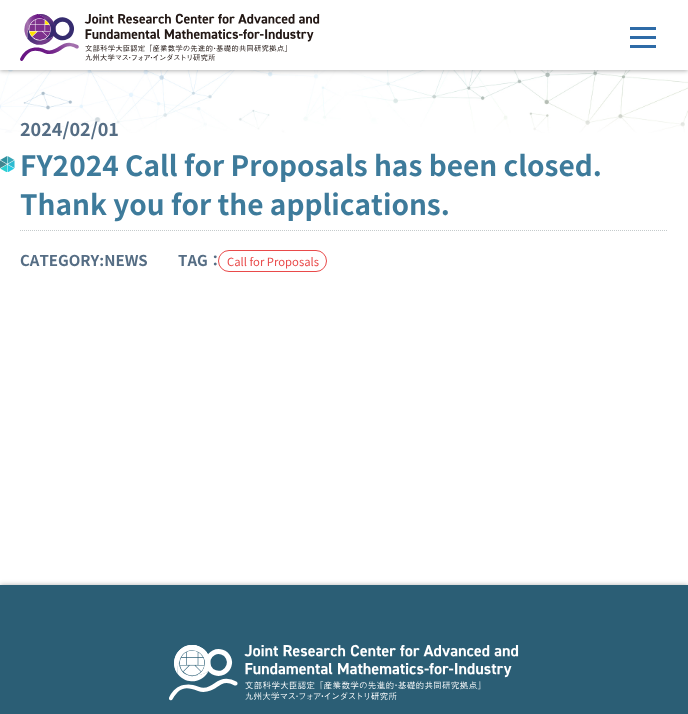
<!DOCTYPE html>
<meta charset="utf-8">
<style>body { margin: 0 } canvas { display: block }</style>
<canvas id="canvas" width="688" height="714"></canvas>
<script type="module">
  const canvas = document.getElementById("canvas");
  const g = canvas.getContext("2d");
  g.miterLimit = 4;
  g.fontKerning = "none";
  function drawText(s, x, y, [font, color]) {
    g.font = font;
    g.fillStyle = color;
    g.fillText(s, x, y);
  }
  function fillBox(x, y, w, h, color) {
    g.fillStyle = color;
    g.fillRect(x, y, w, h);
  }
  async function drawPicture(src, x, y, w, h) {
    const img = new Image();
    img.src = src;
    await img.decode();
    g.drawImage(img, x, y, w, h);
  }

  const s1 = ["bold 18px Noto Sans JP", "#556D84"];
  const s2 = ["bold 28px Noto Sans JP", "#3E7B9B"];
  const s3 = ["bold 15px Noto Sans JP", "#556D84"];
  const s4 = ["11.25px Noto Sans JP", "#E94A4A"];

  fillBox(0, 0, 688, 714, "#FFFFFF");
  await drawPicture("pic2.png", 0, 70, 688, 63);
  g.fillStyle = "rgba(0, 0, 0, 0.3)";
  g.filter = "blur(2px)";
  g.beginPath();
  g.rect(0, 1, 688, 70);
  g.fill();
  g.filter = "none";
  fillBox(0, 0, 688, 70, "#FFFFFF");
  await drawPicture("pic1.png", 20, 13, 300, 48);
  fillBox(630, 27, 26, 3, "#2E6BA7");
  fillBox(630, 36, 26, 3, "#2E6BA7");
  fillBox(630, 45, 26, 3, "#2E6BA7");
  drawText("2024/02/01", 20, 136, s1);
  g.beginPath();
  g.moveTo(20, 230.5);
  g.lineTo(668, 230.5);
  g.strokeStyle = "#C5CBCC";
  g.setLineDash([1, 1]);
  g.stroke();
  await drawPicture("pic3.png", 0, 156, 15, 16);
  drawText("FY2024 Call for Proposals has been closed.", 20, 176, s2);
  drawText("Thank you for the applications.", 20, 215, s2);
  drawText("CATEGORY:NEWS", 20, 266, s3);
  drawText("TAG：", 178, 266, s3);
  g.beginPath();
  g.roundRect(218.5, 250.5, 108, 21, 10.5);
  g.strokeStyle = "#E94A4A";
  g.setLineDash([]);
  g.stroke();
  drawText("Call for Proposals", 227, 266, s4);
  g.fillStyle = "rgba(0, 0, 0, 0.3)";
  g.filter = "blur(2.5px)";
  g.beginPath();
  g.rect(0, 585, 688, 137);
  g.fill();
  g.filter = "none";
  fillBox(0, 585, 688, 129, "#2B5E75");
  await drawPicture("pic4.png", 169, 644, 350, 57);
</script>
